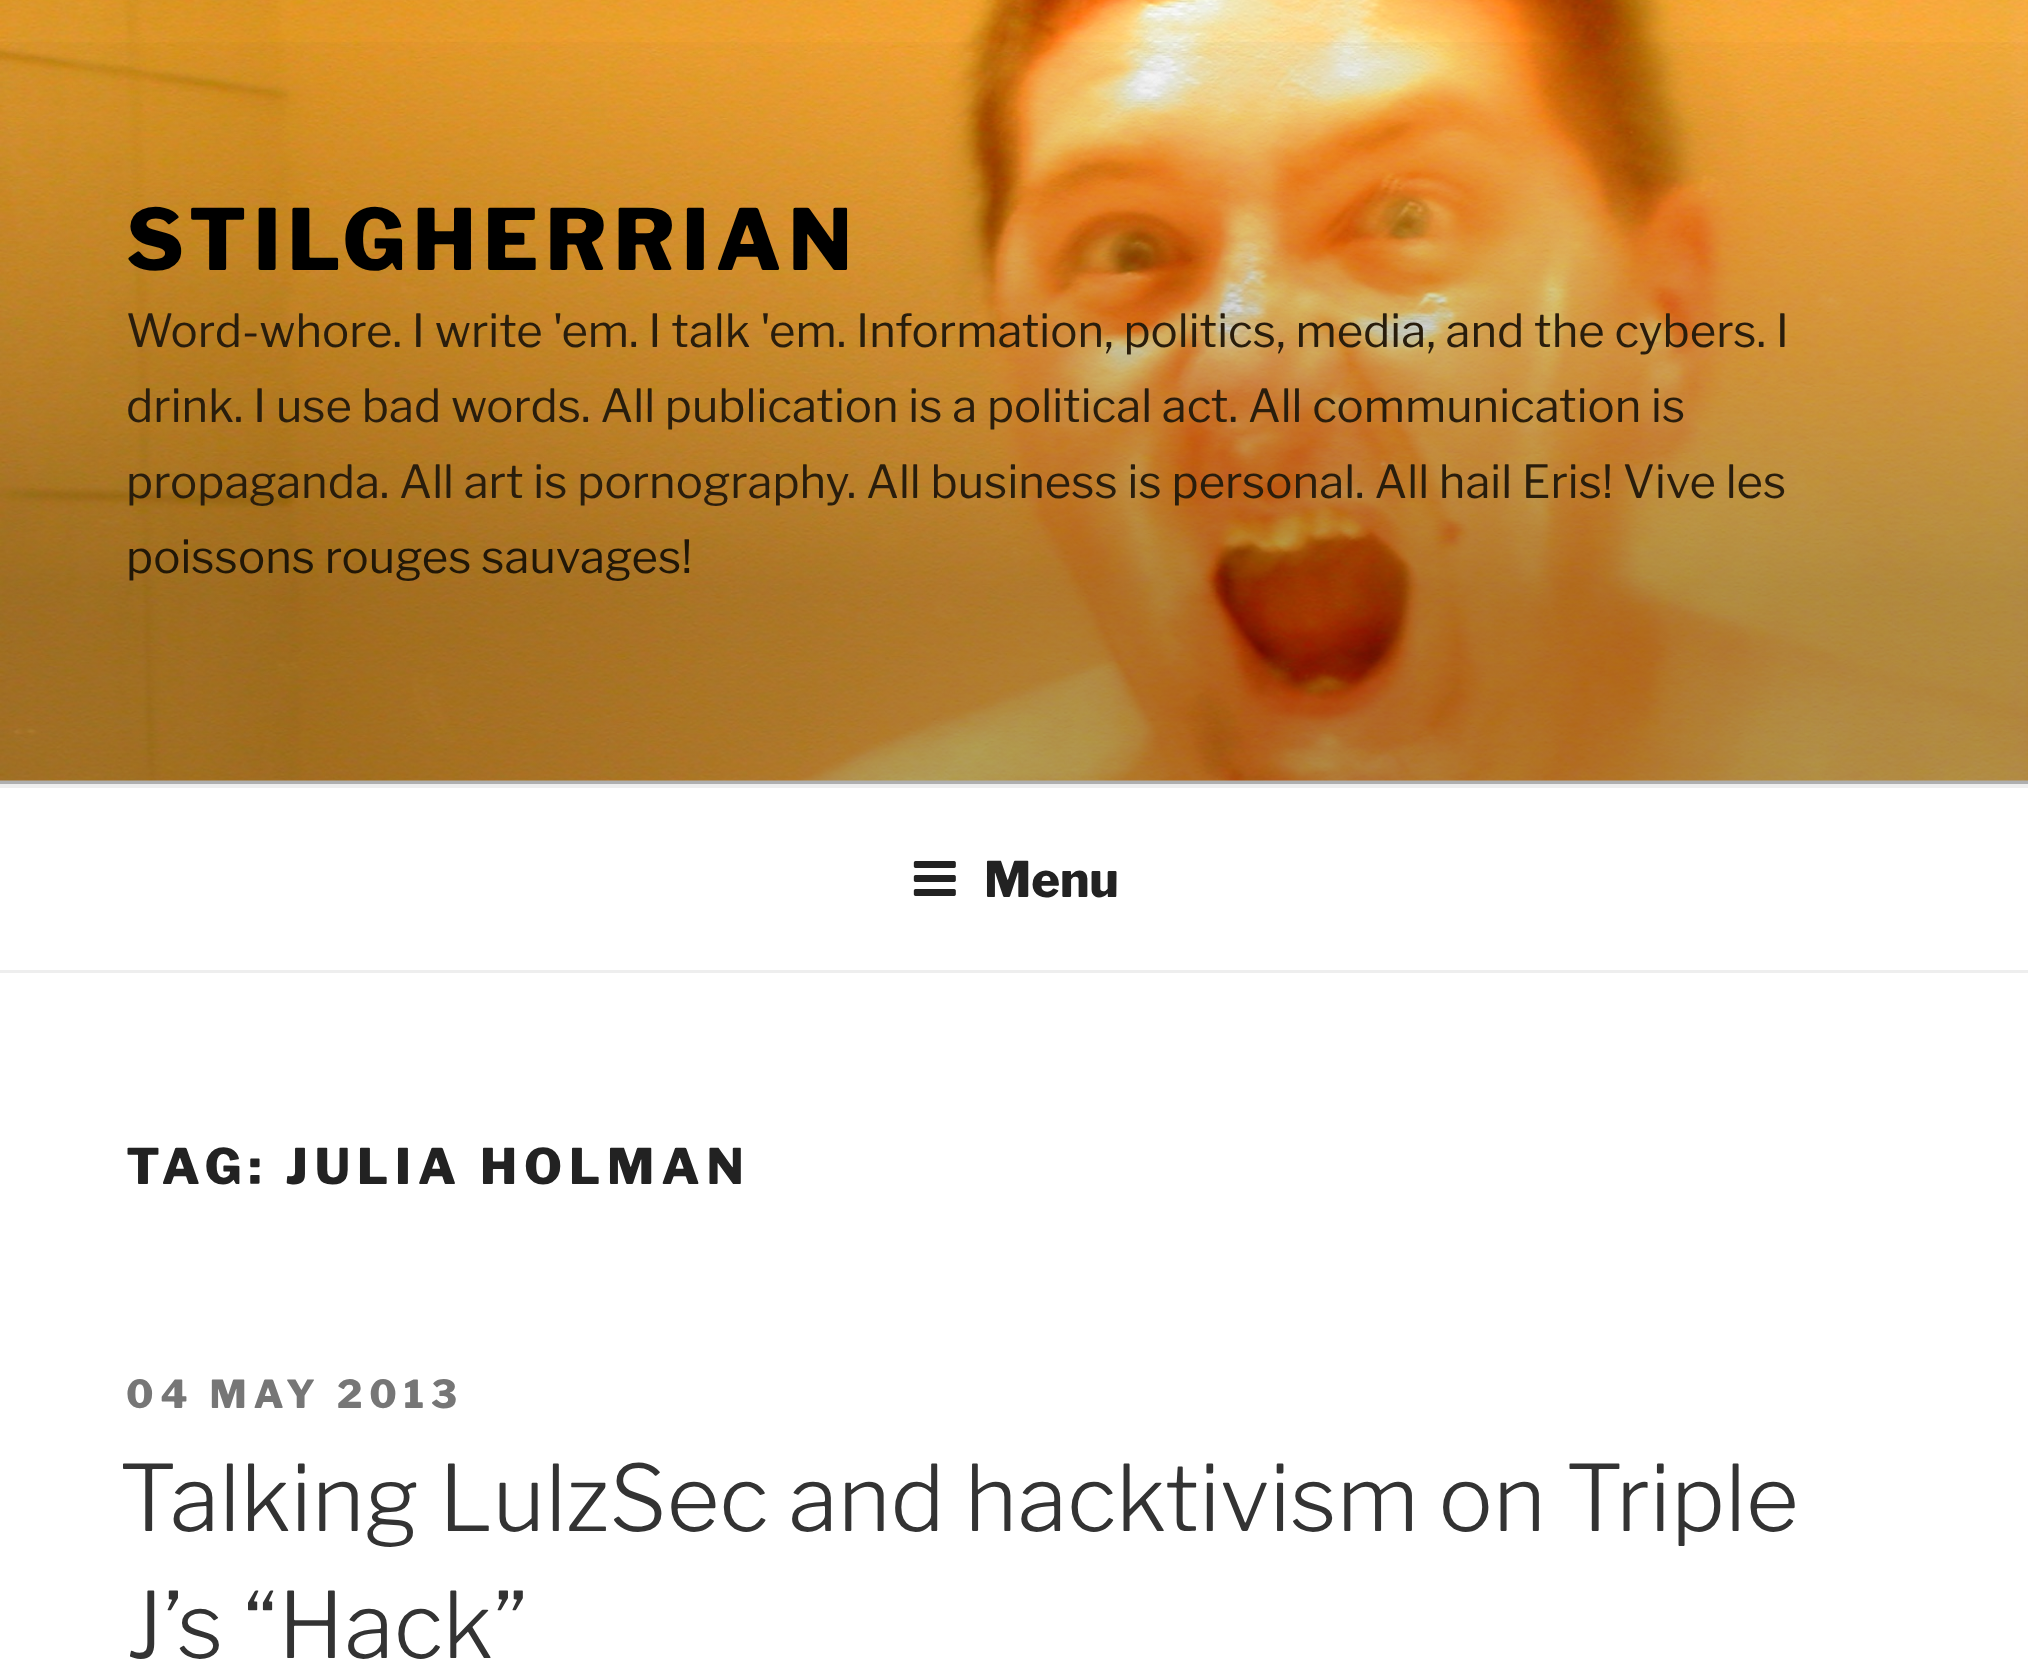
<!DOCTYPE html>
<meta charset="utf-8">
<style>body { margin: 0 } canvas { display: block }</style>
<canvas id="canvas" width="2028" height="1664"></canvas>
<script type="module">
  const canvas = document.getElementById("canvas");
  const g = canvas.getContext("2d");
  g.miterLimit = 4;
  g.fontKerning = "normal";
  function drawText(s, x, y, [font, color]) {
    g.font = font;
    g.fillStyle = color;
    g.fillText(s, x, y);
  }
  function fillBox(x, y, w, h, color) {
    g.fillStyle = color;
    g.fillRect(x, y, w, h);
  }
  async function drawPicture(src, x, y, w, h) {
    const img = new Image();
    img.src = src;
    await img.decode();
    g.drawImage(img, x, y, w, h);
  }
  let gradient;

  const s1 = ["100 84px Libre Franklin", "#000000"];
  const s2 = ["100 45.5px 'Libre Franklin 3'", "#291D0C"];
  const s3 = ["100 45.5px 'Libre Franklin 3'", "#211707"];
  const s4 = ["100 49px Libre Franklin", "#222222"];
  const s5 = ["100 38.5px Libre Franklin", "#767676"];
  const s6 = ["100 91px 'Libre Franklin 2'", "#333333"];

  fillBox(0, 0, 2028, 1664, "#FAFAFA");
  await drawPicture("pic1.png", 0, 0, 2028, 781);
  gradient = g.createLinearGradient(1015, 0, 1015, 784);
  gradient.addColorStop(0, "rgba(0, 0, 0, 0)");
  gradient.addColorStop(0.75, "rgba(0, 0, 0, 0.3)");
  gradient.addColorStop(1, "rgba(0, 0, 0, 0.3)");
  g.fillStyle = gradient;
  g.fillRect(0, 42, 2028, 742);
  g.letterSpacing = "6.75px";
  drawText("STILGHERRIAN", 126, 270, s1);
  g.letterSpacing = "0px";
  drawText("Word-whore. I write 'em. I talk 'em. Information, politics, media, and the cybers. I", 126, 347, s2);
  drawText("drink. I use bad words. All publication is a political act. All communication is", 126, 422, s2);
  drawText("propaganda. All art is pornography. All business is personal. All hail Eris! Vive les", 126, 498, s2);
  drawText("poissons rouges sauvages!", 126, 573, s3);
  fillBox(0, 788, 2028, 182, "#FFFFFF");
  fillBox(0, 784, 2028, 4, "#EEEEEE");
  fillBox(0, 970, 2028, 3, "#EEEEEE");
  await drawPicture("pic2.png", 913, 861, 43, 35);
  drawText("Menu", 984, 897, s4);
  fillBox(0, 973, 2028, 691, "#FFFFFF");
  g.letterSpacing = "6.9px";
  drawText("TAG: JULIA HOLMAN", 126, 1184, s4);
  g.letterSpacing = "7px";
  drawText("04 MAY 2013", 126, 1408, s5);
  g.letterSpacing = "0px";
  drawText("Talking LulzSec and hacktivism on Triple", 119, 1531, s6);
  drawText("J’s “Hack”", 126, 1658, s6);
</script>
